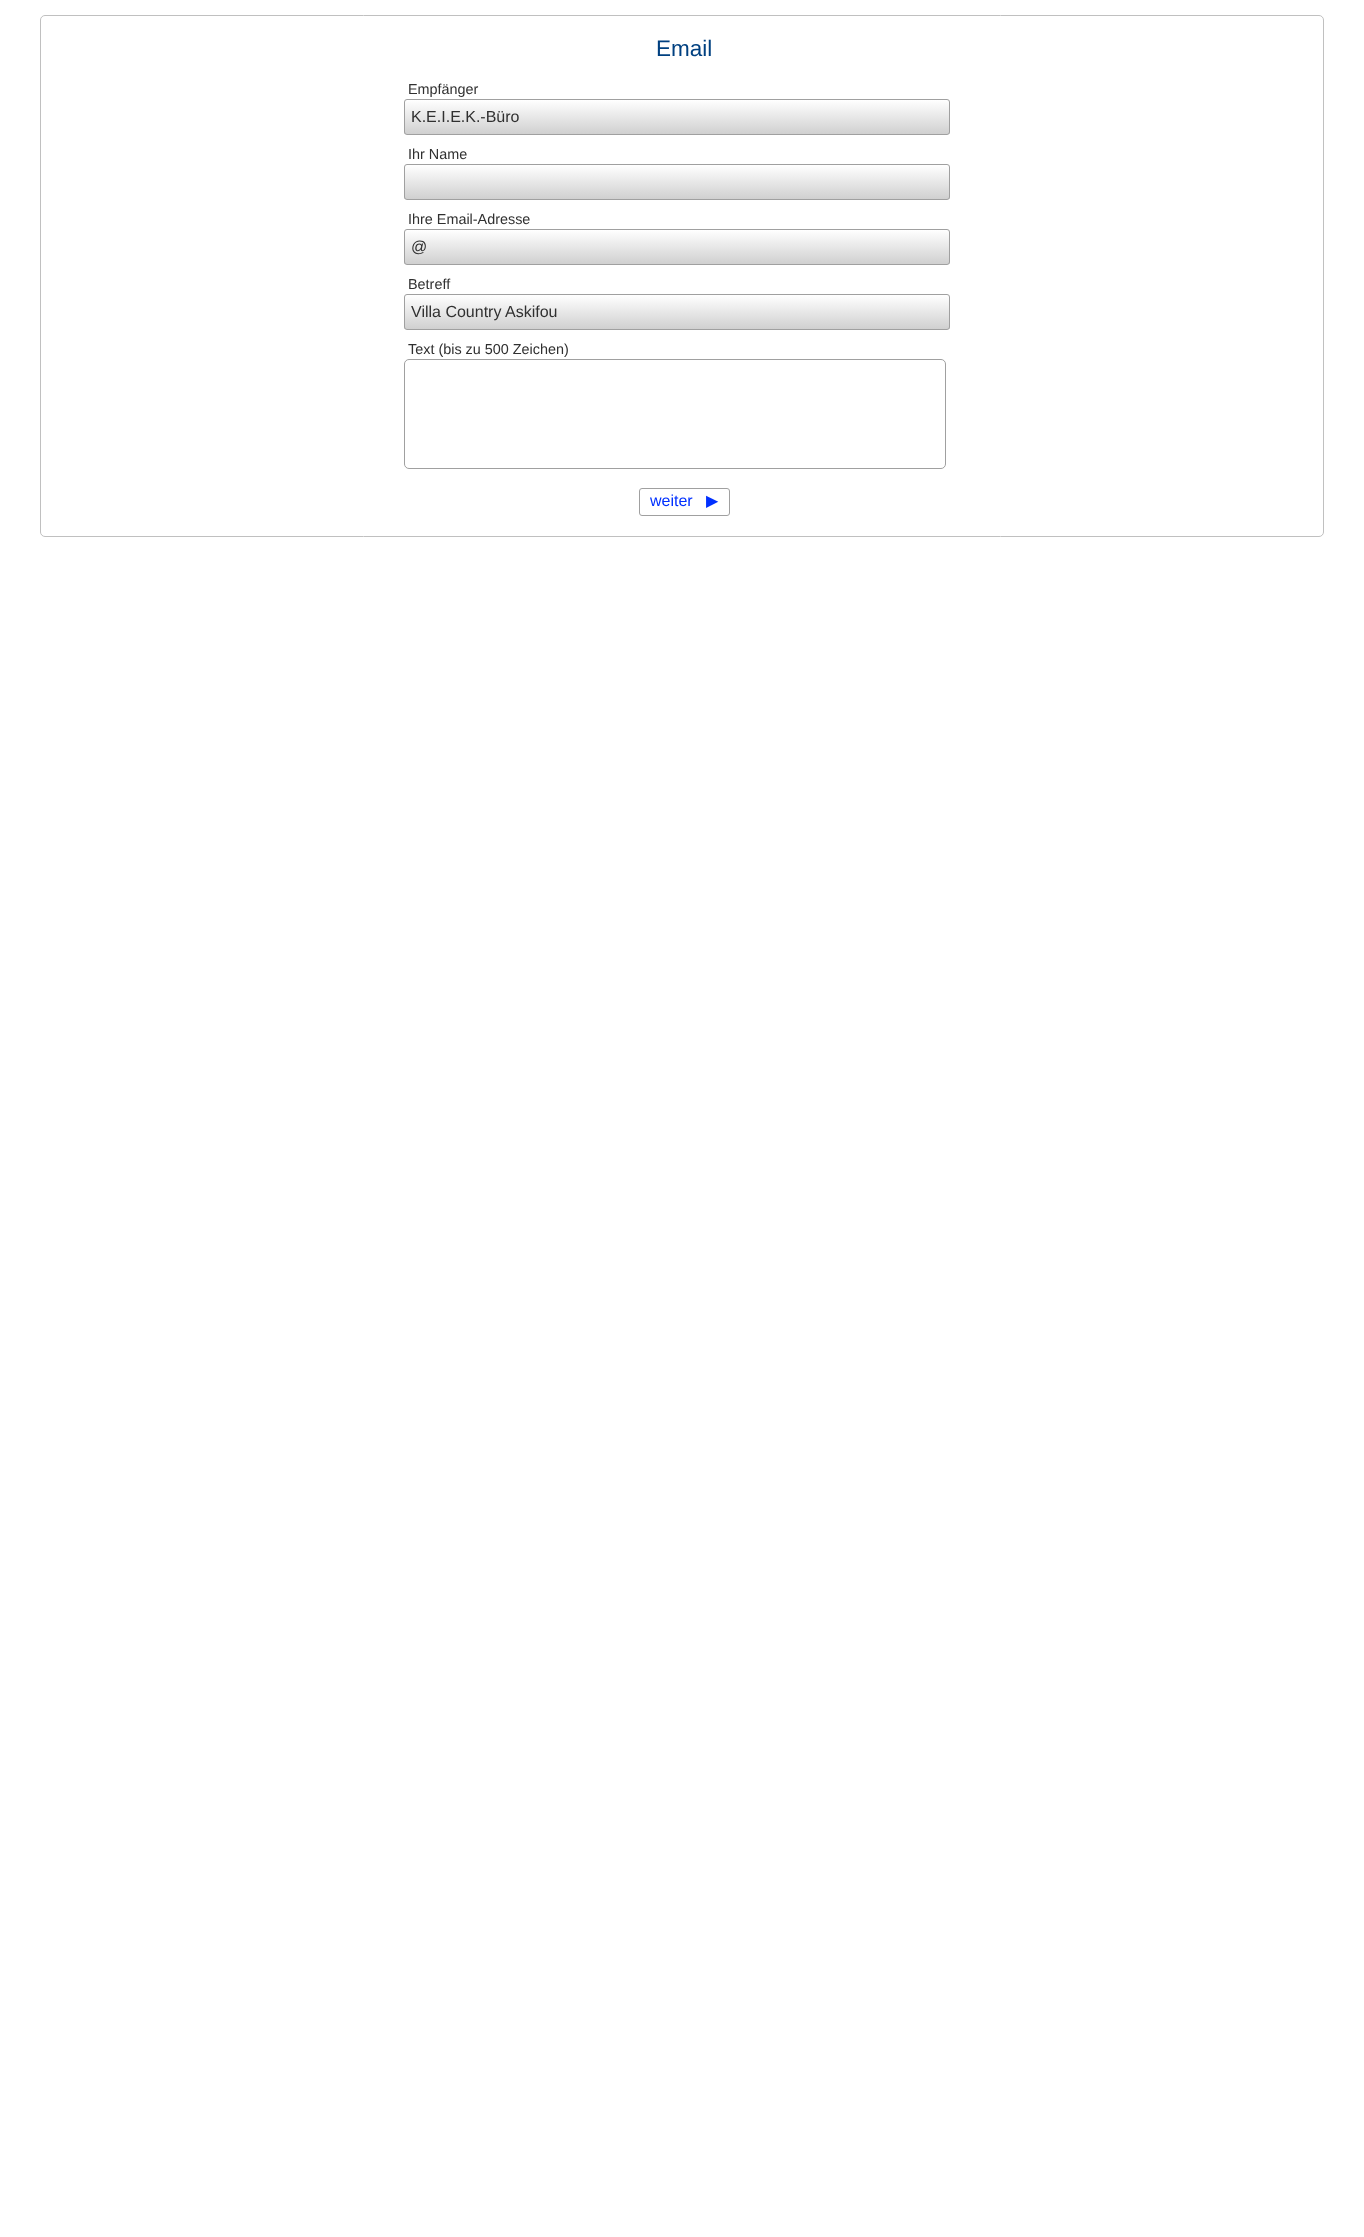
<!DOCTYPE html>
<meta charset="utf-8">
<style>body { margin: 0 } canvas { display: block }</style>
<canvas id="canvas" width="1364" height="2237"></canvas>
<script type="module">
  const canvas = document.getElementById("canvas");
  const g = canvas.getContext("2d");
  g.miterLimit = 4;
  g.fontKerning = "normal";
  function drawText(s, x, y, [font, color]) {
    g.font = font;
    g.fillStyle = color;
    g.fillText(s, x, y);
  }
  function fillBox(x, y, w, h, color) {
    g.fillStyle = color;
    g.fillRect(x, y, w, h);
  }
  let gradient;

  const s1 = ["22.5px Liberation Sans", "#004080"];
  const s2 = ["14.4px Liberation Sans", "#303030"];
  const s3 = ["16px Liberation Sans", "#303030"];
  const s4 = ["16px Liberation Sans", "#0030FF"];
  const s5 = ["16px DejaVu Sans", "#0030FF"];

  fillBox(0, 0, 1364, 2237, "#FFFFFF");
  g.beginPath();
  g.roundRect(40.5, 15.5, 1283, 521, 4.5);
  g.strokeStyle = "#C0C0C0";
  g.stroke();
  drawText("Email", 656, 56, s1);
  drawText("Empfänger", 408, 94, s2);
  g.save();
  g.beginPath();
  g.roundRect(404, 99, 546, 36, 3);
  g.clip();
  gradient = g.createLinearGradient(677, 100, 677, 134);
  gradient.addColorStop(0, "#FFFFFF");
  gradient.addColorStop(1, "#D0D0D0");
  g.fillStyle = gradient;
  g.fillRect(404, 100, 546, 34);
  g.restore();
  g.beginPath();
  g.roundRect(404.5, 99.5, 545, 35, 2.5);
  g.strokeStyle = "#A0A0A0";
  g.stroke();
  drawText("K.E.I.E.K.-Büro", 411, 122, s3);
  drawText("Ihr Name", 408, 159, s2);
  g.save();
  g.beginPath();
  g.roundRect(404, 164, 546, 36, 3);
  g.clip();
  gradient = g.createLinearGradient(677, 165, 677, 199);
  gradient.addColorStop(0, "#FFFFFF");
  gradient.addColorStop(1, "#D0D0D0");
  g.fillStyle = gradient;
  g.fillRect(404, 165, 546, 34);
  g.restore();
  g.beginPath();
  g.roundRect(404.5, 164.5, 545, 35, 2.5);
  g.stroke();
  drawText("Ihre Email-Adresse", 408, 224, s2);
  g.save();
  g.beginPath();
  g.roundRect(404, 229, 546, 36, 3);
  g.clip();
  gradient = g.createLinearGradient(677, 230, 677, 264);
  gradient.addColorStop(0, "#FFFFFF");
  gradient.addColorStop(1, "#D0D0D0");
  g.fillStyle = gradient;
  g.fillRect(404, 230, 546, 34);
  g.restore();
  g.beginPath();
  g.roundRect(404.5, 229.5, 545, 35, 2.5);
  g.stroke();
  drawText("@", 411, 252, s3);
  drawText("Betreff", 408, 289, s2);
  g.save();
  g.beginPath();
  g.roundRect(404, 294, 546, 36, 3);
  g.clip();
  gradient = g.createLinearGradient(677, 295, 677, 329);
  gradient.addColorStop(0, "#FFFFFF");
  gradient.addColorStop(1, "#D0D0D0");
  g.fillStyle = gradient;
  g.fillRect(404, 295, 546, 34);
  g.restore();
  g.beginPath();
  g.roundRect(404.5, 294.5, 545, 35, 2.5);
  g.stroke();
  drawText("Villa Country Askifou", 411, 317, s3);
  drawText("Text (bis zu 500 Zeichen)", 408, 354, s2);
  g.beginPath();
  g.roundRect(404.5, 359.5, 541, 109, 4.5);
  g.stroke();
  g.beginPath();
  g.roundRect(639.5, 488.5, 90, 27, 2.5);
  g.stroke();
  drawText("weiter", 650, 506, s4);
  drawText("▶", 706, 506, s5);
</script>
